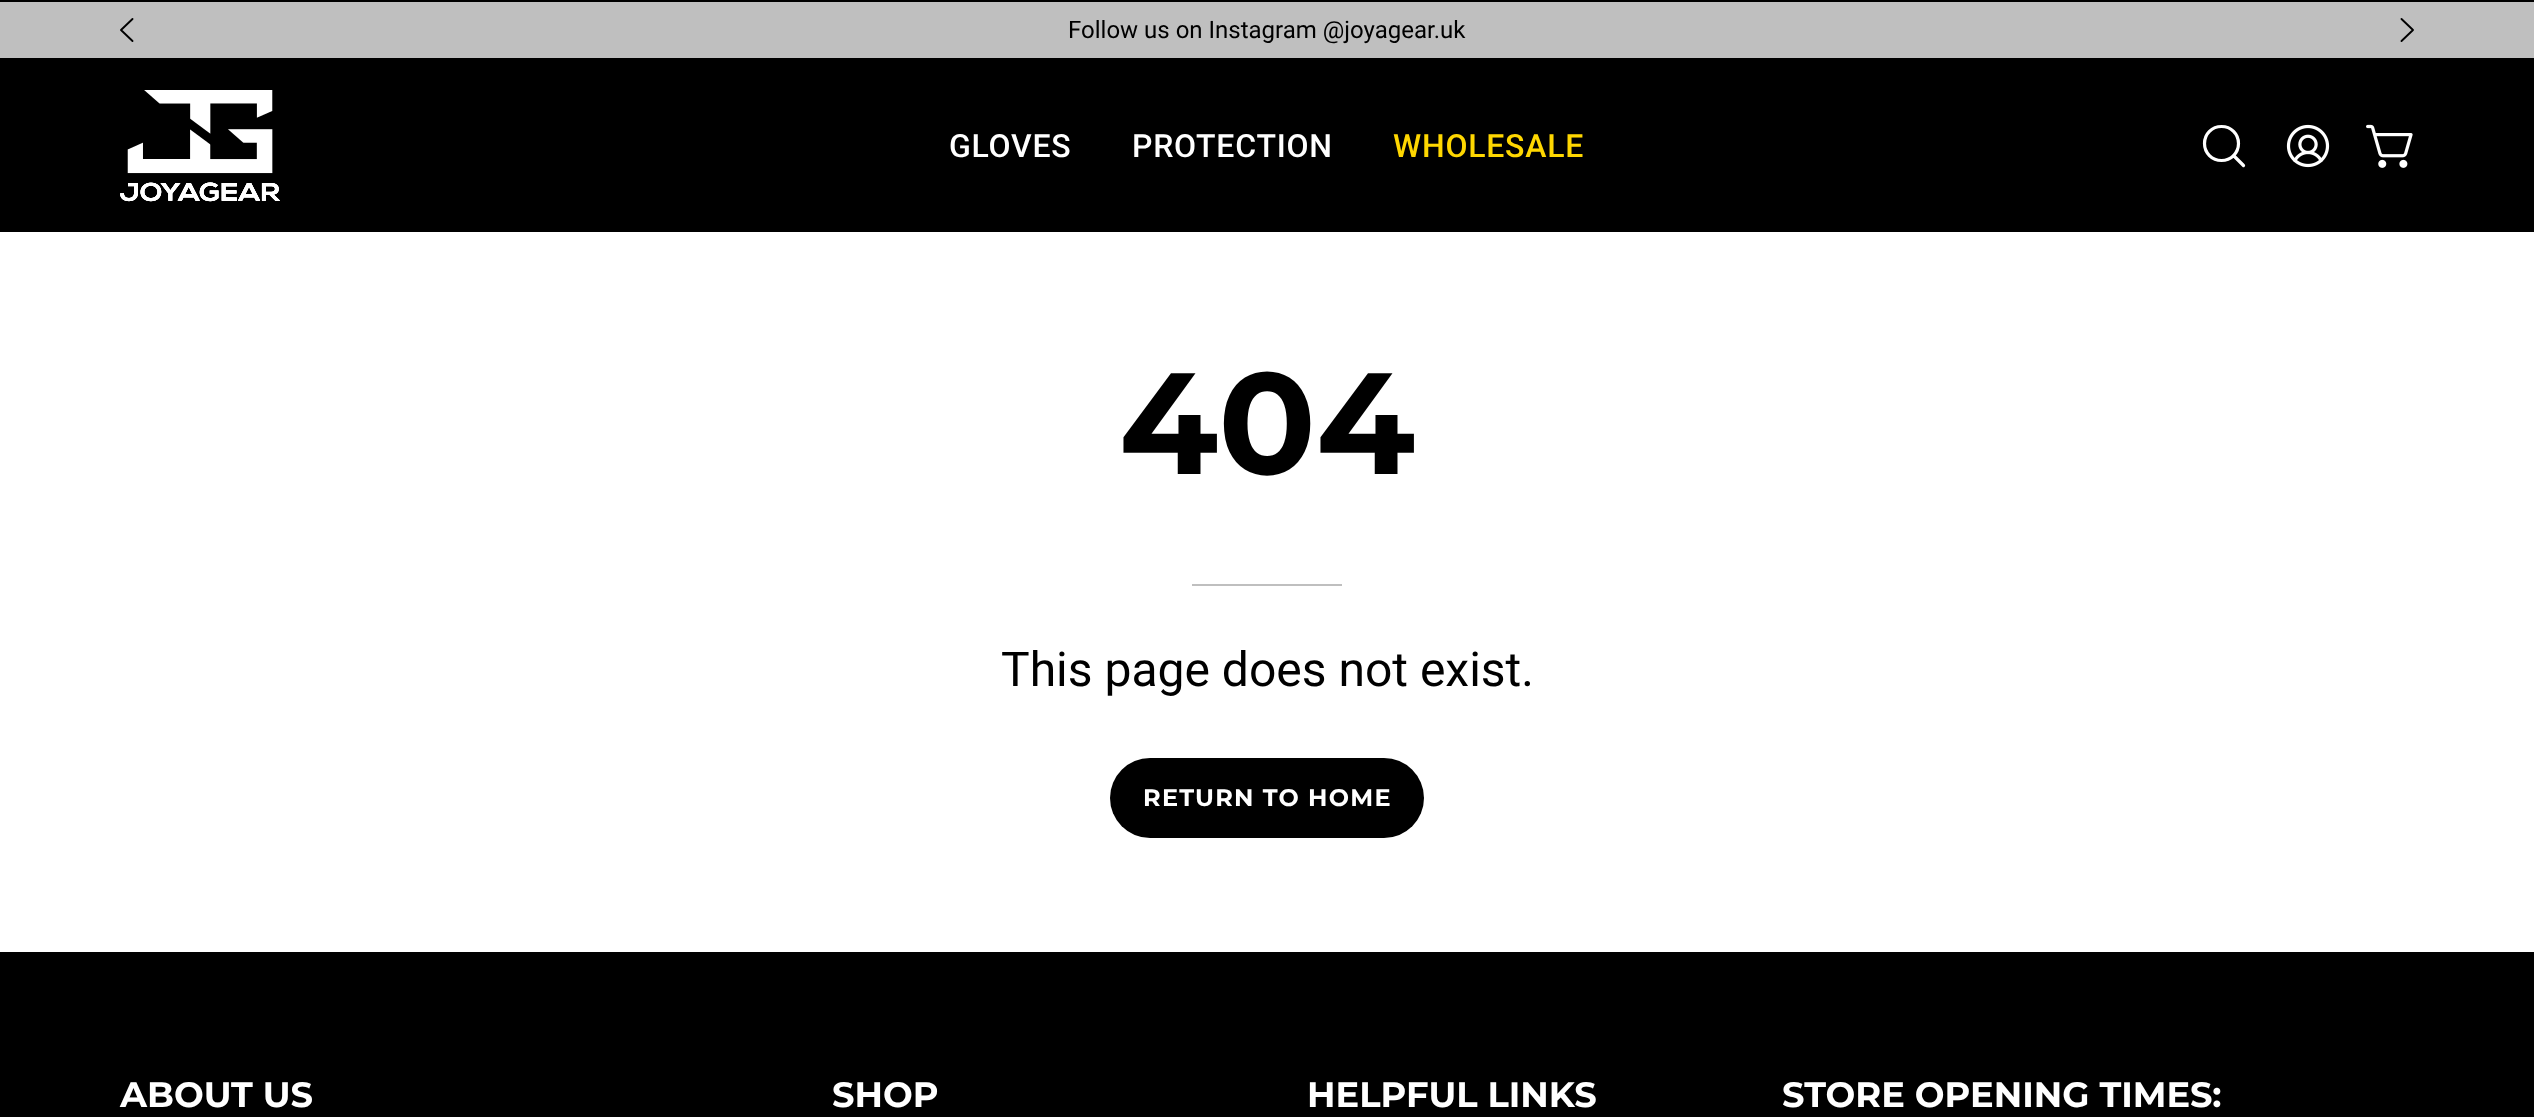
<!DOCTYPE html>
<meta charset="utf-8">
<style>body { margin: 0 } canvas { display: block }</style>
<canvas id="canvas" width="2534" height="1117"></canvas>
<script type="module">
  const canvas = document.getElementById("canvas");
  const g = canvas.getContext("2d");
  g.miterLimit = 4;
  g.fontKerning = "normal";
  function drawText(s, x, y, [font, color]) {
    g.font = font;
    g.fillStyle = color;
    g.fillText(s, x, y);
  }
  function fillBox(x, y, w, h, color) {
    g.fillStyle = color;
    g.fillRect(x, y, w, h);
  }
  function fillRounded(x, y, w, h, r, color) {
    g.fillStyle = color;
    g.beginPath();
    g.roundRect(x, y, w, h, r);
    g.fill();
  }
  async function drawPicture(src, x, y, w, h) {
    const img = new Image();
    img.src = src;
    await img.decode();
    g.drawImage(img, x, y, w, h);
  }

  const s1 = ["24px Roboto", "#000000"];
  const s2 = ["500 32px Roboto", "#FFFFFF"];
  const s3 = ["500 32px Roboto", "#FFD700"];
  const s4 = ["bold 144px Montserrat", "#000000"];
  const s5 = ["48px Roboto", "#000000"];
  const s6 = ["bold 24px Montserrat", "#FFFFFF"];
  const s7 = ["bold 35.25px Montserrat", "#FFFFFF"];

  fillBox(0, 0, 2534, 1117, "#FFFFFF");
  fillBox(0, 2, 2534, 56, "#BFBFBF");
  fillBox(0, 0, 2534, 2, "#000000");
  fillBox(0, 58, 2534, 174, "#000000");
  g.beginPath();
  g.moveTo(132.5, 41);
  g.lineTo(121, 30);
  g.lineTo(132.5, 19);
  g.strokeStyle = "#000000";
  g.lineWidth = 1.9;
  g.lineCap = "round";
  g.lineJoin = "round";
  g.stroke();
  drawText("Follow us on Instagram @joyagear.uk", 1068, 38, s1);
  g.beginPath();
  g.moveTo(2401.5, 19);
  g.lineTo(2413, 30);
  g.lineTo(2401.5, 41);
  g.stroke();
  await drawPicture("pic1.png", 120, 90, 160, 112);
  g.letterSpacing = "0.75px";
  drawText("GLOVES", 949, 157, s2);
  drawText("PROTECTION", 1132, 157, s2);
  drawText("WHOLESALE", 1393, 157, s3);
  g.beginPath();
  g.moveTo(2221.5, 160.5);
  g.bezierCurveTo(2231, 160.5, 2238.5, 153, 2238.5, 143.5);
  g.bezierCurveTo(2238.5, 134, 2231, 126.5, 2221.5, 126.5);
  g.bezierCurveTo(2212, 126.5, 2204.5, 134, 2204.5, 143.5);
  g.bezierCurveTo(2204.5, 153, 2212, 160.5, 2221.5, 160.5);
  g.closePath();
  g.moveTo(2233.5, 155.5);
  g.lineTo(2243.5, 165.5);
  g.strokeStyle = "#FFFFFF";
  g.lineWidth = 3.2;
  g.stroke();
  await drawPicture("pic2.png", 2286, 124, 44, 44);
  await drawPicture("pic3.png", 2366, 124, 47, 44);
  g.letterSpacing = "0px";
  drawText("404", 1119, 474, s4);
  fillBox(1192, 584, 150, 2, "#BFBFBF");
  drawText("This page does not exist.", 1001, 686, s5);
  fillRounded(1110, 758, 314, 80, 40, "#000000");
  g.letterSpacing = "1.25px";
  drawText("RETURN TO HOME", 1143, 806, s6);
  fillBox(0, 952, 2534, 165, "#000000");
  g.letterSpacing = "0px";
  drawText("ABOUT US", 120, 1107, s7);
  drawText("SHOP", 832, 1107, s7);
  drawText("HELPFUL LINKS", 1307, 1107, s7);
  drawText("STORE OPENING TIMES:", 1782, 1107, s7);
</script>
